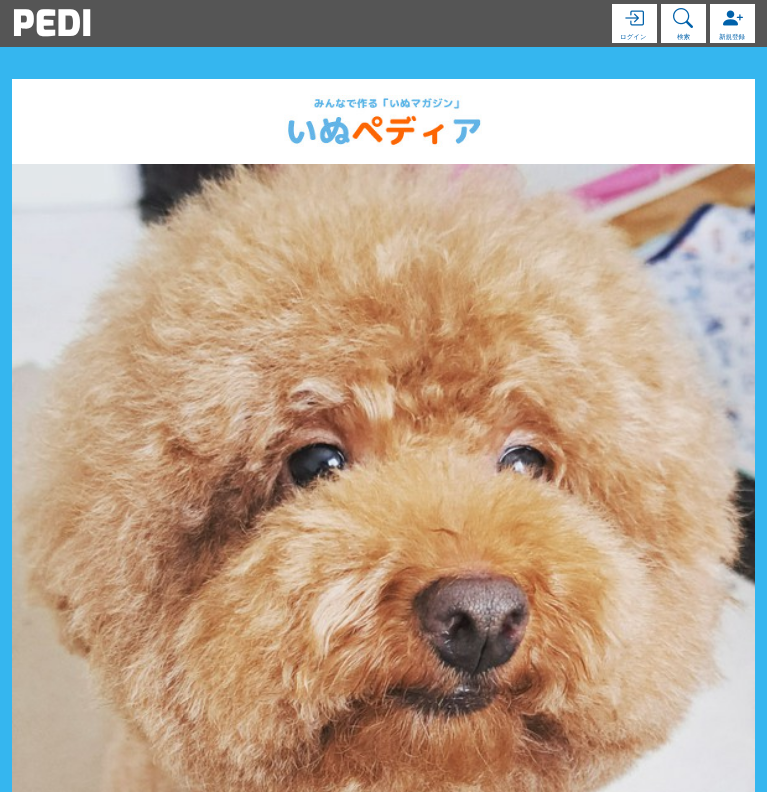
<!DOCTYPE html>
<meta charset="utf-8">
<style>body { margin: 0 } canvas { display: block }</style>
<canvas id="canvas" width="767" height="792"></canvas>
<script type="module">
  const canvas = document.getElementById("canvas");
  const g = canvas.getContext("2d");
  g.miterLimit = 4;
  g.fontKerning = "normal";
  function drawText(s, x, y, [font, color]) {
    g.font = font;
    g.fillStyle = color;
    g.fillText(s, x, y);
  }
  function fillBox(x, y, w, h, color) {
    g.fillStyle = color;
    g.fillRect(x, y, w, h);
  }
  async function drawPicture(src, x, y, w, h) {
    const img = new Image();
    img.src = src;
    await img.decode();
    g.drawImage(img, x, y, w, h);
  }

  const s1 = ["900 36px Exo", "#FFFFFF"];
  const s2 = ["500 6.5px WenQuanYi Zen Hei", "#0061AA"];

  fillBox(0, 0, 767, 792, "#35B6EF");
  fillBox(0, 0, 767, 47, "#555555");
  drawText("PEDI", 12, 36, s1);
  fillBox(612, 4, 45, 39, "#FFFFFF");
  await drawPicture("pic1.png", 625, 10, 19, 16);
  drawText("ログイン", 620, 39, s2);
  fillBox(661, 4, 45, 39, "#FFFFFF");
  await drawPicture("pic2.png", 673, 8, 20, 20);
  drawText("検索", 677, 39, s2);
  fillBox(710, 4, 45, 39, "#FFFFFF");
  await drawPicture("pic3.png", 723, 10, 20, 16);
  drawText("新規登録", 719, 39, s2);
  fillBox(12, 79, 743, 85, "#FFFFFF");
  await drawPicture("pic4.png", 284, 95, 198, 52);
  await drawPicture("pic5.png", 12, 164, 743, 628);
</script>
